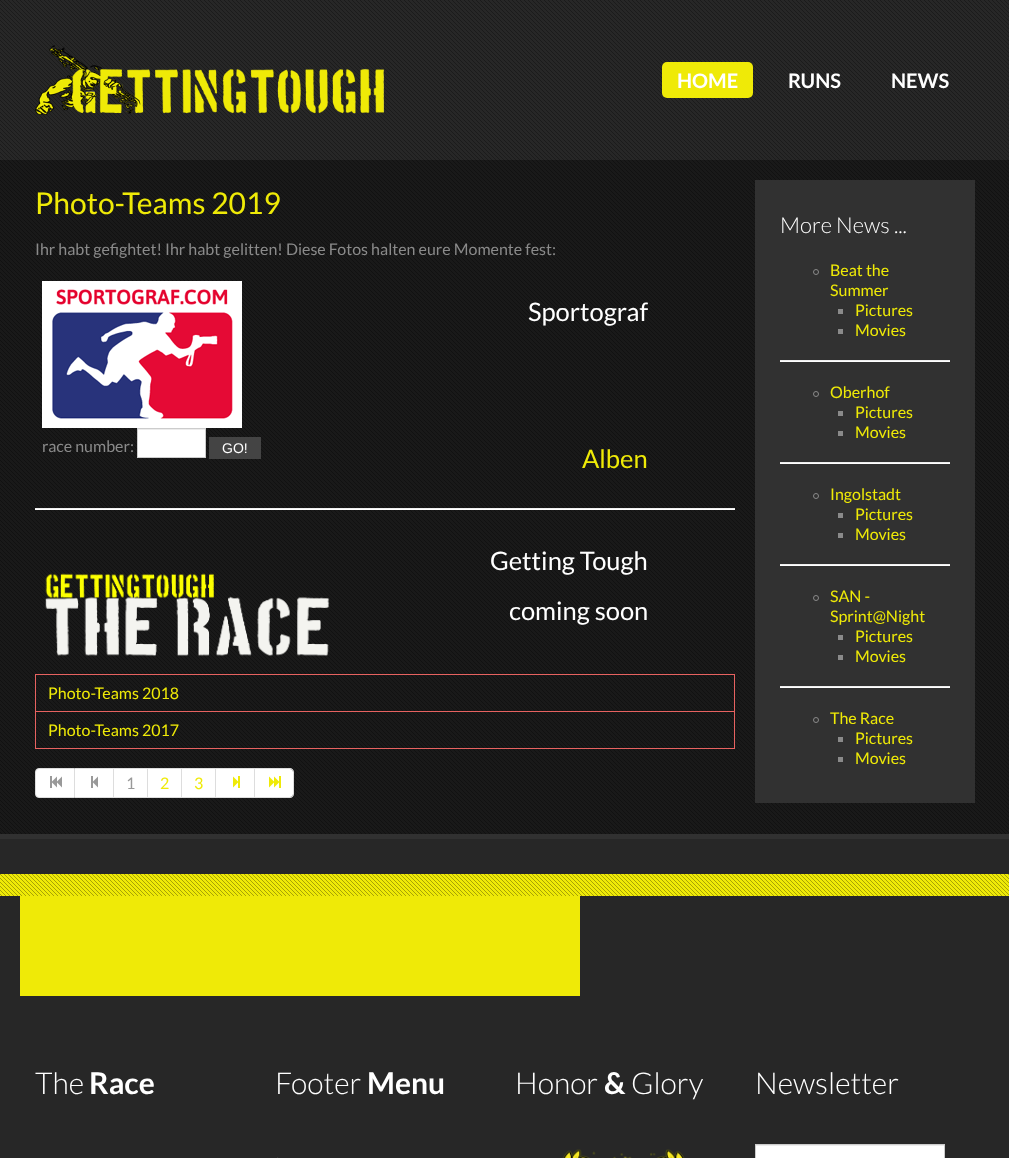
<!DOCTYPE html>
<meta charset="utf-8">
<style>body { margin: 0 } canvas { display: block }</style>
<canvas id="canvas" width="1009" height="1158"></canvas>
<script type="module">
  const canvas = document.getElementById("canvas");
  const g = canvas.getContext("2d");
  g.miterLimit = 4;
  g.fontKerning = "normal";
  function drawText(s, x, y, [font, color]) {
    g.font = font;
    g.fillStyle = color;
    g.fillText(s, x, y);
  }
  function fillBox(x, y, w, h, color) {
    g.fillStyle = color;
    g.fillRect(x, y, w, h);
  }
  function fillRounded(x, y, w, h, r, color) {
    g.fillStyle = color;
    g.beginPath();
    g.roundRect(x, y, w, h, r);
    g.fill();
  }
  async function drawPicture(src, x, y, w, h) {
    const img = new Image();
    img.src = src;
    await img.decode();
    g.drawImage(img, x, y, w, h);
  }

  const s1 = ["bold 20px Lato", "#FFFFFF"];
  const s2 = ["30px Lato", "#EFEA07"];
  const s3 = ["16px Lato", "#8A8A8A"];
  const s4 = ["25.5px Lato", "#FFFFFF"];
  const s5 = ["14px Liberation Sans", "#FFFFFF"];
  const s6 = ["25.5px Lato", "#EFEA07"];
  const s7 = ["16px Lato", "#EFEA07"];
  const s8 = ["16px Lato", "#999999"];
  const s9 = ["300 22px Lato", "#FFFFFF"];
  const s10 = ["300 30px Lato", "#FFFFFF"];
  const s11 = ["bold 30px Lato", "#FFFFFF"];

  fillBox(0, 0, 1009, 1158, "#272727");
  await drawPicture("pic1.png", 0, 0, 1009, 160);
  await drawPicture("pic2.png", 35, 45, 349, 70);
  fillRounded(662, 62, 91, 36, 5, "#EFEA07");
  drawText("HOME", 677, 88, s1);
  drawText("RUNS", 788, 88, s1);
  drawText("NEWS", 891, 88, s1);
  fillBox(0, 160, 1009, 674, "#191919");
  await drawPicture("pic3.png", 0, 160, 1009, 674);
  fillBox(0, 834, 1009, 5, "#313131");
  drawText("Photo-Teams 2019", 35, 214, s2);
  drawText("Ihr habt gefightet! Ihr habt gelitten! Diese Fotos halten eure Momente fest:", 35, 255, s3);
  await drawPicture("pic4.png", 42, 281, 200, 147);
  drawText("Sportograf", 528, 321, s4);
  drawText("race number:", 42, 452, s3);
  fillBox(138, 430, 67, 27, "#FFFFFF");
  fillBox(138, 429, 67, 1, "#ECECEC");
  g.strokeStyle = "#CCCCCC";
  g.strokeRect(137.5, 428.5, 68, 29);
  fillBox(209, 437, 52, 22, "#444444");
  drawText("GO!", 222, 453, s5);
  drawText("Alben", 582, 468, s6);
  fillBox(35, 508, 700, 1, "#EEEEEE");
  fillBox(35, 509, 700, 1, "#FFFFFF");
  drawText("Getting Tough", 490, 570, s4);
  await drawPicture("pic5.png", 45, 573, 285, 83);
  drawText("coming soon", 509, 620, s4);
  g.strokeStyle = "#E76260";
  g.strokeRect(35.5, 674.5, 699, 37);
  drawText("Photo-Teams 2018", 48, 699, s7);
  g.strokeRect(35.5, 711.5, 699, 37);
  drawText("Photo-Teams 2017", 48, 736, s7);
  g.fillStyle = "#FFFFFF";
  g.beginPath();
  g.roundRect(35.5, 768.5, 39, 29, [3.5, 0, 0, 3.5]);
  g.fill();
  g.strokeStyle = "#DDDDDD";
  g.stroke();
  await drawPicture("pic6.png", 50, 776, 12, 12);
  fillBox(75, 769, 38, 28, "#FFFFFF");
  fillBox(75, 768, 180, 1, "#DDDDDD");
  fillBox(113, 768, 1, 30, "#DDDDDD");
  fillBox(75, 797, 39, 1, "#DDDDDD");
  await drawPicture("pic7.png", 91, 776, 7, 12);
  fillBox(114, 769, 33, 28, "#FFFFFF");
  fillBox(147, 768, 1, 30, "#DDDDDD");
  fillBox(114, 797, 34, 1, "#DDDDDD");
  drawText("1", 126, 789, s8);
  fillBox(148, 769, 33, 28, "#FFFFFF");
  fillBox(181, 768, 1, 30, "#DDDDDD");
  fillBox(148, 797, 34, 1, "#DDDDDD");
  drawText("2", 160, 789, s7);
  fillBox(182, 769, 33, 28, "#FFFFFF");
  fillBox(215, 768, 1, 30, "#DDDDDD");
  fillBox(182, 797, 34, 1, "#DDDDDD");
  drawText("3", 194, 789, s7);
  fillBox(216, 769, 38, 28, "#FFFFFF");
  fillBox(254, 768, 1, 30, "#DDDDDD");
  fillBox(216, 797, 39, 1, "#DDDDDD");
  await drawPicture("pic8.png", 233, 776, 7, 12);
  g.fillStyle = "#FFFFFF";
  g.beginPath();
  g.roundRect(255, 769, 38, 28, [0, 3, 3, 0]);
  g.fill();
  g.fillStyle = "#DDDDDD";
  g.beginPath();
  g.moveTo(255, 768);
  g.lineTo(290, 768);
  g.bezierCurveTo(292, 768, 294, 770, 294, 772);
  g.lineTo(294, 794);
  g.bezierCurveTo(294, 796, 292, 798, 290, 798);
  g.lineTo(255, 798);
  g.closePath();
  g.moveTo(255, 769);
  g.lineTo(290, 769);
  g.bezierCurveTo(291.5, 769, 293, 770.5, 293, 772);
  g.lineTo(293, 794);
  g.bezierCurveTo(293, 795.5, 291.5, 797, 290, 797);
  g.lineTo(255, 797);
  g.closePath();
  g.fill("evenodd");
  await drawPicture("pic9.png", 269, 776, 12, 12);
  fillBox(755, 180, 220, 623, "#313131");
  drawText("More News ...", 780, 233, s9);
  g.beginPath();
  g.arc(816, 272, 2.5, 0, Math.PI * 2);
  g.strokeStyle = "#8A8A8A";
  g.stroke();
  drawText("Beat the", 830, 276, s7);
  drawText("Summer", 830, 296, s7);
  fillBox(838, 309, 5, 5, "#8A8A8A");
  drawText("Pictures", 855, 316, s7);
  fillBox(838, 329, 5, 5, "#8A8A8A");
  drawText("Movies", 855, 336, s7);
  fillBox(780, 360, 170, 1, "#EEEEEE");
  fillBox(780, 361, 170, 1, "#FFFFFF");
  g.beginPath();
  g.arc(816, 394, 2.5, 0, Math.PI * 2);
  g.stroke();
  drawText("Oberhof", 830, 398, s7);
  fillBox(838, 411, 5, 5, "#8A8A8A");
  drawText("Pictures", 855, 418, s7);
  fillBox(838, 431, 5, 5, "#8A8A8A");
  drawText("Movies", 855, 438, s7);
  fillBox(780, 462, 170, 1, "#EEEEEE");
  fillBox(780, 463, 170, 1, "#FFFFFF");
  g.beginPath();
  g.arc(816, 496, 2.5, 0, Math.PI * 2);
  g.stroke();
  drawText("Ingolstadt", 830, 500, s7);
  fillBox(838, 513, 5, 5, "#8A8A8A");
  drawText("Pictures", 855, 520, s7);
  fillBox(838, 533, 5, 5, "#8A8A8A");
  drawText("Movies", 855, 540, s7);
  fillBox(780, 564, 170, 1, "#EEEEEE");
  fillBox(780, 565, 170, 1, "#FFFFFF");
  g.beginPath();
  g.arc(816, 598, 2.5, 0, Math.PI * 2);
  g.stroke();
  drawText("SAN -", 830, 602, s7);
  drawText("Sprint@Night", 830, 622, s7);
  fillBox(838, 635, 5, 5, "#8A8A8A");
  drawText("Pictures", 855, 642, s7);
  fillBox(838, 655, 5, 5, "#8A8A8A");
  drawText("Movies", 855, 662, s7);
  fillBox(780, 686, 170, 1, "#EEEEEE");
  fillBox(780, 687, 170, 1, "#FFFFFF");
  g.beginPath();
  g.arc(816, 720, 2.5, 0, Math.PI * 2);
  g.stroke();
  drawText("The Race", 830, 724, s7);
  fillBox(838, 737, 5, 5, "#8A8A8A");
  drawText("Pictures", 855, 744, s7);
  fillBox(838, 757, 5, 5, "#8A8A8A");
  drawText("Movies", 855, 764, s7);
  fillBox(0, 874, 1009, 22, "#EFEA07");
  await drawPicture("pic10.png", 0, 874, 1009, 22);
  fillBox(20, 896, 560, 100, "#EFEA07");
  drawText("The", 35, 1094, s10);
  drawText("Race", 89, 1094, s11);
  drawText("Footer", 275, 1094, s10);
  drawText("Menu", 367, 1094, s11);
  g.fillStyle = "#8A8A8A";
  g.beginPath();
  g.moveTo(277.5, 1157.5);
  g.lineTo(286.5, 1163);
  g.lineTo(277.5, 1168);
  g.closePath();
  g.fill();
  drawText("Honor", 515, 1094, s10);
  drawText("&", 604, 1094, s11);
  drawText("Glory", 631, 1094, s10);
  await drawPicture("pic11.png", 562, 1149, 123, 9);
  drawText("Newsletter", 755, 1094, s10);
  fillBox(756, 1146, 188, 12, "#FFFFFF");
  fillBox(756, 1145, 188, 1, "#ECECEC");
  g.strokeStyle = "#CCCCCC";
  g.strokeRect(755.5, 1144.5, 189, 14);
</script>
